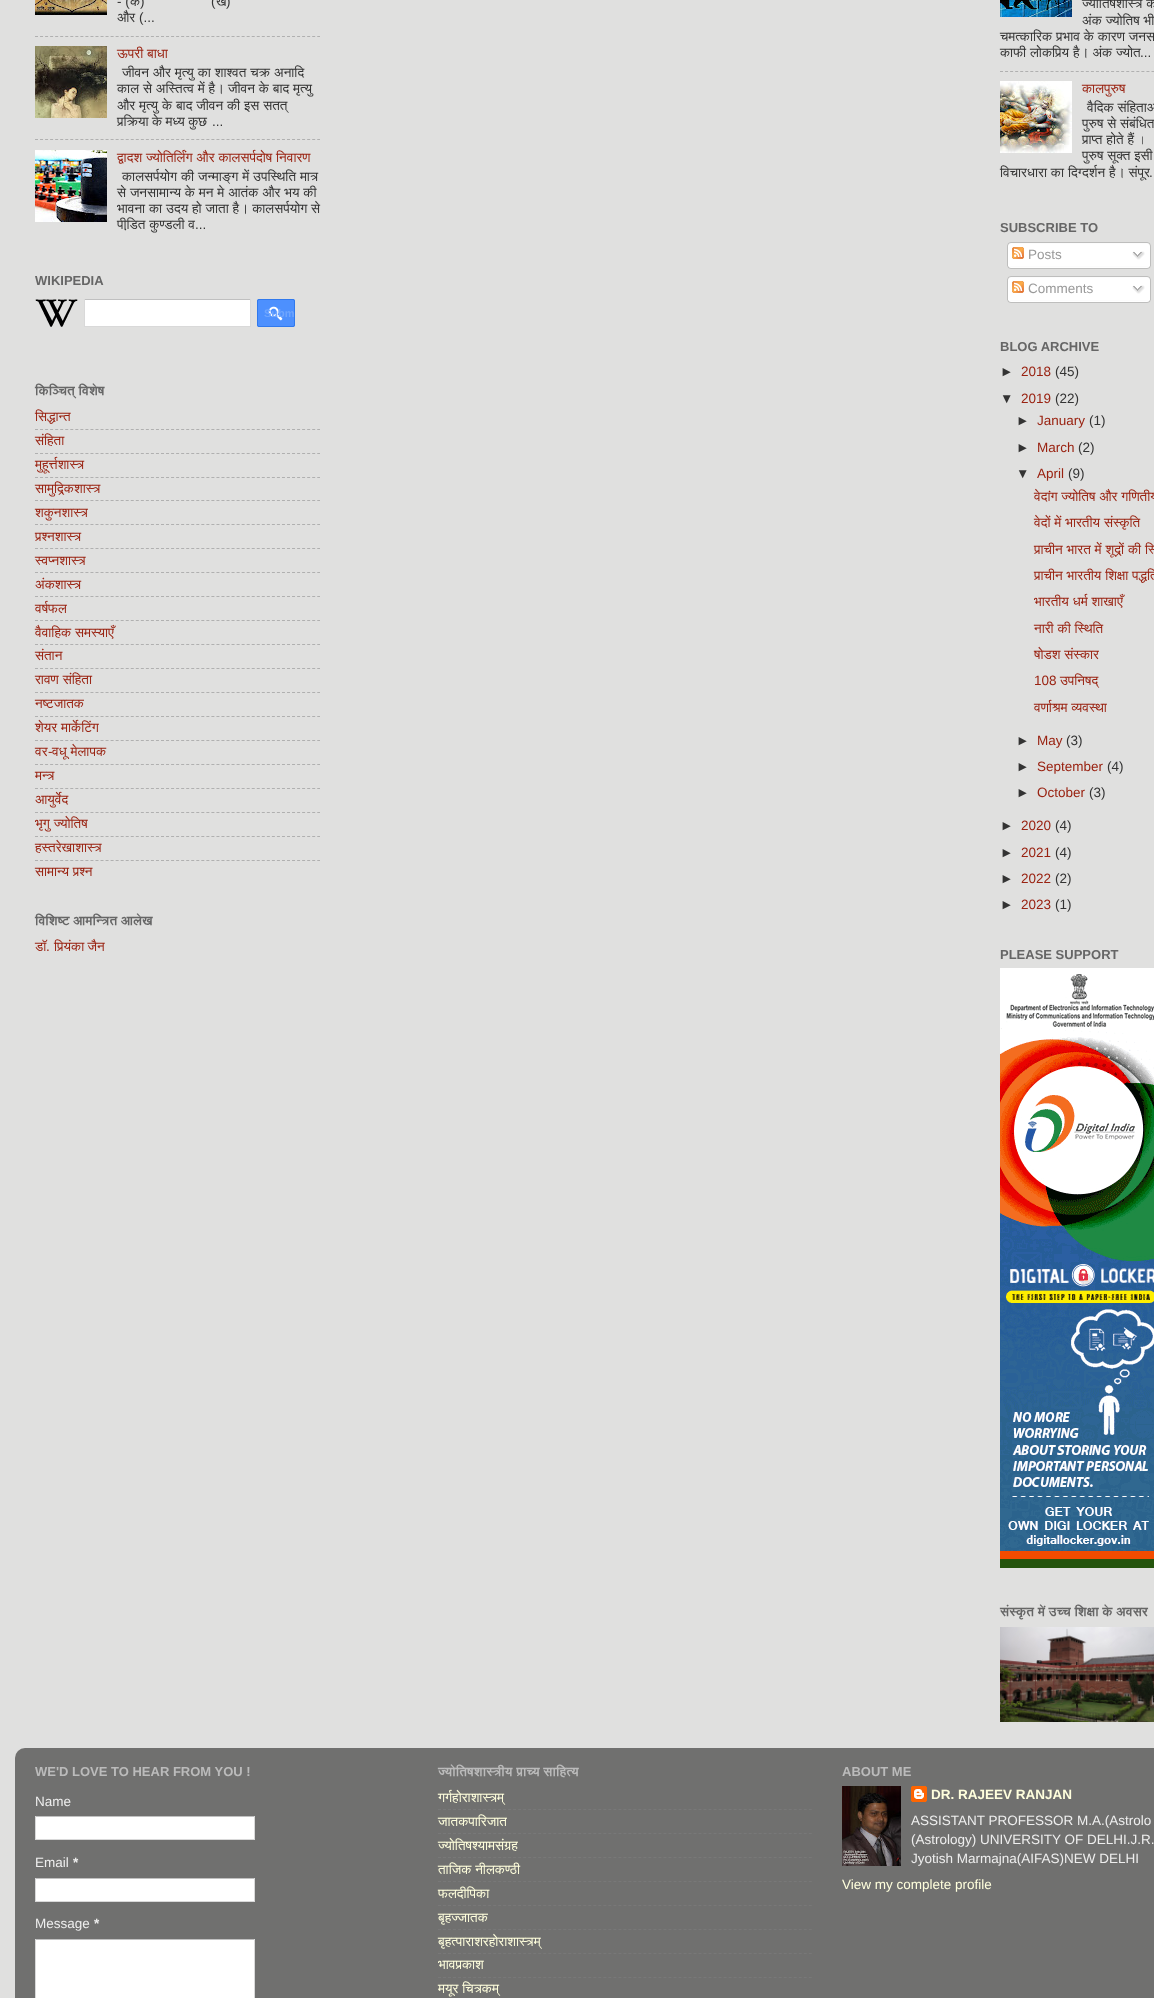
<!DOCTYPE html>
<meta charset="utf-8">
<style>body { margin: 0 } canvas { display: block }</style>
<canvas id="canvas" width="1154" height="1998"></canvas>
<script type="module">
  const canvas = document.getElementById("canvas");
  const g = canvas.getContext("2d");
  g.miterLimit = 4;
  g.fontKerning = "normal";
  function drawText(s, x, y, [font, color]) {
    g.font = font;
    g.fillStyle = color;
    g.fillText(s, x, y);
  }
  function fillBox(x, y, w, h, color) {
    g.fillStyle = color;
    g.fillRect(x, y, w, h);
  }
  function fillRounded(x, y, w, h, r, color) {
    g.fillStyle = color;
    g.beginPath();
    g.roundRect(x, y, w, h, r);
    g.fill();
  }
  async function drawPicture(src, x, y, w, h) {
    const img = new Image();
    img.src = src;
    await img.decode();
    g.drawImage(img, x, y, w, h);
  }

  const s1 = ["13.5px Liberation Sans", "#333333"];
  const s2 = ["13.5px FreeSans", "#333333"];
  const s3 = ["13.5px FreeSans", "#992211"];
  const s4 = ["bold 13px Liberation Sans", "#666666"];
  const s5 = ["bold 11px Liberation Sans", "#6EA5FE"];
  const s6 = ["600 13px FreeSans", "#666666"];
  const s7 = ["13.5px Liberation Sans", "#992211"];
  const s8 = ["13.5px Liberation Sans", "#999999"];
  const s9 = ["bold 13px Liberation Sans", "#BBBBBB"];
  const s10 = ["13.5px Liberation Sans", "#EEEEEE"];
  const s11 = ["bold 13.5px Liberation Sans", "#EEEEEE"];
  const s12 = ["600 13px FreeSans", "#BBBBBB"];
  const s13 = ["13.5px FreeSans", "#FFFFDD"];
  const s14 = ["bold 13.5px Liberation Sans", "#FFFFDD"];
  const s15 = ["13.5px Liberation Sans", "#FFFFDD"];

  fillBox(0, 0, 1154, 1998, "#E0E0DF");
  await drawPicture("pic1.png", 35, 0, 72, 15);
  drawText("- (", 117, 6, s1);
  drawText("क", 130, 6, s2);
  drawText(")", 140, 6, s1);
  drawText("(", 211, 6, s1);
  drawText("ख", 216, 6, s2);
  drawText(")", 226, 6, s1);
  drawText("और", 117, 22, s2);
  drawText("(...", 139, 22, s1);
  g.beginPath();
  g.moveTo(35, 36.5);
  g.lineTo(320, 36.5);
  g.strokeStyle = "#B0B0B0";
  g.setLineDash([3, 2.04]);
  g.stroke();
  await drawPicture("pic2.png", 35, 46, 72, 72);
  g.wordSpacing = "0.5px";
  drawText("ऊपरी बाधा", 117, 58, s3);
  drawText("जीवन और मृत्यु का शाश्वत चक्र अनादि", 122, 77, s2);
  drawText("काल से अस्तित्व में है। जीवन के बाद मृत्यु", 117, 93, s2);
  drawText("और मृत्यु के बाद जीवन की इस सतत्", 117, 110, s2);
  g.wordSpacing = "0px";
  drawText("प्रक्रिया के मध्य कुछ", 117, 126, s2);
  drawText("...", 212, 126, s1);
  g.beginPath();
  g.moveTo(35, 139.5);
  g.lineTo(320, 139.5);
  g.stroke();
  await drawPicture("pic3.png", 35, 150, 72, 72);
  g.wordSpacing = "0.5px";
  drawText("द्वादश ज्योतिर्लिंग और कालसर्पदोष निवारण", 117, 162, s3);
  drawText("कालसर्पयोग की जन्माङ्ग में उपस्थिति मात्र", 122, 181, s2);
  drawText("से जनसामान्य के मन मे आतंक और भय की", 117, 197, s2);
  drawText("भावना का उदय हो जाता है। कालसर्पयोग से", 117, 213, s2);
  drawText("पीडि़त कुण्डली व", 117, 229, s2);
  g.wordSpacing = "0px";
  drawText("...", 195, 229, s1);
  drawText("WIKIPEDIA", 35, 285, s4);
  await drawPicture("pic4.png", 35, 299, 43, 28);
  fillBox(85, 300, 165, 26, "#FFFFFF");
  fillBox(84, 299, 167, 1, "#C0C0C0");
  fillBox(250, 299, 1, 28, "#D9D9D9");
  fillBox(84, 326, 167, 1, "#D9D9D9");
  fillBox(84, 299, 1, 28, "#D9D9D9");
  fillRounded(257, 299, 38, 28, 2, "#4D90FE");
  await drawPicture("pic5.png", 268, 306, 15, 15);
  g.beginPath();
  g.roundRect(257.5, 299.5, 37, 27, 1.5);
  g.strokeStyle = "#3079ED";
  g.setLineDash([]);
  g.stroke();
  drawText("Subm", 264, 317, s5);
  drawText("किञ्चित् विशेष", 35, 395, s6);
  drawText("सिद्धान्त", 35, 421, s3);
  g.beginPath();
  g.moveTo(35, 429.5);
  g.lineTo(320, 429.5);
  g.strokeStyle = "#B0B0B0";
  g.setLineDash([3, 2.04]);
  g.stroke();
  drawText("संहिता", 35, 445, s3);
  g.beginPath();
  g.moveTo(35, 453.5);
  g.lineTo(320, 453.5);
  g.stroke();
  drawText("मुहूर्त्तशास्त्र", 35, 469, s3);
  g.beginPath();
  g.moveTo(35, 477.5);
  g.lineTo(320, 477.5);
  g.stroke();
  drawText("सामुद्रिकशास्त्र", 35, 493, s3);
  g.beginPath();
  g.moveTo(35, 500.5);
  g.lineTo(320, 500.5);
  g.stroke();
  drawText("शकुनशास्त्र", 35, 517, s3);
  g.beginPath();
  g.moveTo(35, 524.5);
  g.lineTo(320, 524.5);
  g.stroke();
  drawText("प्रश्नशास्त्र", 35, 541, s3);
  g.beginPath();
  g.moveTo(35, 548.5);
  g.lineTo(320, 548.5);
  g.stroke();
  drawText("स्वप्नशास्त्र", 35, 565, s3);
  g.beginPath();
  g.moveTo(35, 572.5);
  g.lineTo(320, 572.5);
  g.stroke();
  drawText("अंकशास्त्र", 35, 589, s3);
  g.beginPath();
  g.moveTo(35, 596.5);
  g.lineTo(320, 596.5);
  g.stroke();
  drawText("वर्षफल", 35, 613, s3);
  g.beginPath();
  g.moveTo(35, 620.5);
  g.lineTo(320, 620.5);
  g.stroke();
  g.wordSpacing = "0.5px";
  drawText("वैवाहिक समस्याएँ", 35, 637, s3);
  g.beginPath();
  g.moveTo(35, 644.5);
  g.lineTo(320, 644.5);
  g.stroke();
  g.wordSpacing = "0px";
  drawText("संतान", 35, 660, s3);
  g.beginPath();
  g.moveTo(35, 668.5);
  g.lineTo(320, 668.5);
  g.stroke();
  g.wordSpacing = "0.5px";
  drawText("रावण संहिता", 35, 684, s3);
  g.beginPath();
  g.moveTo(35, 692.5);
  g.lineTo(320, 692.5);
  g.stroke();
  g.wordSpacing = "0px";
  drawText("नष्टजातक", 35, 708, s3);
  g.beginPath();
  g.moveTo(35, 716.5);
  g.lineTo(320, 716.5);
  g.stroke();
  g.wordSpacing = "0.5px";
  drawText("शेयर मार्केटिंग", 35, 732, s3);
  g.beginPath();
  g.moveTo(35, 740.5);
  g.lineTo(320, 740.5);
  g.stroke();
  g.wordSpacing = "0px";
  drawText("वर", 35, 756, s3);
  drawText("-", 48, 756, s7);
  g.wordSpacing = "0.5px";
  drawText("वधू मेलापक", 52, 756, s3);
  g.beginPath();
  g.moveTo(35, 764.5);
  g.lineTo(320, 764.5);
  g.stroke();
  g.wordSpacing = "0px";
  drawText("मन्त्र", 35, 780, s3);
  g.beginPath();
  g.moveTo(35, 788.5);
  g.lineTo(320, 788.5);
  g.stroke();
  drawText("आयुर्वेद", 35, 804, s3);
  g.beginPath();
  g.moveTo(35, 812.5);
  g.lineTo(320, 812.5);
  g.stroke();
  g.wordSpacing = "0.5px";
  drawText("भृगु ज्योतिष", 35, 828, s3);
  g.beginPath();
  g.moveTo(35, 836.5);
  g.lineTo(320, 836.5);
  g.stroke();
  g.wordSpacing = "0px";
  drawText("हस्तरेखाशास्त्र", 35, 852, s3);
  g.beginPath();
  g.moveTo(35, 860.5);
  g.lineTo(320, 860.5);
  g.stroke();
  g.wordSpacing = "0.5px";
  drawText("सामान्य प्रश्न", 35, 876, s3);
  g.wordSpacing = "0px";
  drawText("विशिष्ट आमन्त्रित आलेख", 35, 925, s6);
  drawText("डॉ", 35, 951, s3);
  drawText(".", 46, 951, s7);
  drawText("प्रियंका जैन", 54, 951, s3);
  g.wordSpacing = "0.5px";
  drawText("ज्योतिषशास्त्र के", 1082, 8, s2);
  drawText("अंक ज्योतिष भी", 1082, 25, s2);
  drawText("चमत्कारिक प्रभाव के कारण जनसा", 1000, 41, s2);
  drawText("काफी लोकप्रिय है। अंक ज्योत", 1000, 57, s2);
  g.wordSpacing = "0px";
  drawText("...", 1140, 57, s1);
  await drawPicture("pic6.png", 1000, 0, 72, 17);
  g.beginPath();
  g.moveTo(1000, 71.5);
  g.lineTo(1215, 71.5);
  g.setLineDash([3, 2.05]);
  g.stroke();
  await drawPicture("pic7.png", 1000, 81, 72, 72);
  drawText("कालपुरुष", 1082, 93, s3);
  g.wordSpacing = "0.5px";
  drawText("वैदिक संहिताओ", 1087, 112, s2);
  drawText("पुरुष से संबंधित", 1082, 128, s2);
  drawText("प्राप्त होते हैं ।", 1082, 144, s2);
  drawText("पुरुष सूक्त इसी", 1082, 160, s2);
  drawText("विचारधारा का दिग्दर्शन है। संपूर", 1000, 177, s2);
  g.wordSpacing = "0px";
  drawText(".", 1149, 177, s1);
  drawText("SUBSCRIBE TO", 1000, 232, s4);
  await drawPicture("pic8.png", 1007, 242, 144, 24);
  await drawPicture("pic9.png", 1012, 247, 12, 12);
  drawText("Posts", 1028, 259, s8);
  await drawPicture("pic10.png", 1132, 251, 13, 9);
  await drawPicture("pic11.png", 1007, 266, 144, 3);
  await drawPicture("pic8.png", 1007, 276, 144, 24);
  await drawPicture("pic9.png", 1012, 281, 12, 12);
  drawText("Comments", 1028, 293, s8);
  await drawPicture("pic10.png", 1132, 285, 13, 9);
  await drawPicture("pic11.png", 1007, 300, 144, 3);
  drawText("BLOG ARCHIVE", 1000, 351, s4);
  drawText("►", 1000, 376, s1);
  drawText("2018", 1021, 376, s7);
  drawText("(45)", 1055, 376, s1);
  drawText("▼", 1000, 403, s1);
  drawText("2019", 1021, 403, s7);
  drawText("(22)", 1055, 403, s1);
  drawText("►", 1016, 425, s1);
  drawText("January", 1037, 425, s7);
  drawText("(1)", 1089, 425, s1);
  drawText("►", 1016, 452, s1);
  drawText("March", 1037, 452, s7);
  drawText("(2)", 1078, 452, s1);
  drawText("▼", 1016, 478, s1);
  drawText("April", 1037, 478, s7);
  drawText("(9)", 1068, 478, s1);
  g.wordSpacing = "0.5px";
  drawText("वेदांग ज्योतिष और गणितीय", 1034, 501, s3);
  drawText("वेदों में भारतीय संस्कृति", 1034, 527, s3);
  drawText("प्राचीन भारत में शूद्रों की स्थि", 1034, 554, s3);
  drawText("प्राचीन भारतीय शिक्षा पद्धति", 1034, 580, s3);
  drawText("भारतीय धर्म शाखाएँ", 1034, 606, s3);
  drawText("नारी की स्थिति", 1034, 633, s3);
  drawText("षोडश संस्कार", 1034, 659, s3);
  g.wordSpacing = "0px";
  drawText("108", 1034, 685, s7);
  drawText("उपनिषद्", 1060, 685, s3);
  g.wordSpacing = "0.5px";
  drawText("वर्णाश्रम व्यवस्था", 1034, 712, s3);
  g.wordSpacing = "0px";
  drawText("►", 1016, 745, s1);
  drawText("May", 1037, 745, s7);
  drawText("(3)", 1066, 745, s1);
  drawText("►", 1016, 771, s1);
  drawText("September", 1037, 771, s7);
  drawText("(4)", 1107, 771, s1);
  drawText("►", 1016, 797, s1);
  drawText("October", 1037, 797, s7);
  drawText("(3)", 1089, 797, s1);
  drawText("►", 1000, 830, s1);
  drawText("2020", 1021, 830, s7);
  drawText("(4)", 1055, 830, s1);
  drawText("►", 1000, 857, s1);
  drawText("2021", 1021, 857, s7);
  drawText("(4)", 1055, 857, s1);
  drawText("►", 1000, 883, s1);
  drawText("2022", 1021, 883, s7);
  drawText("(2)", 1055, 883, s1);
  drawText("►", 1000, 909, s1);
  drawText("2023", 1021, 909, s7);
  drawText("(1)", 1055, 909, s1);
  drawText("PLEASE SUPPORT", 1000, 959, s4);
  await drawPicture("pic12.png", 1000, 968, 154, 600);
  drawText("संस्कृत में उच्च शिक्षा के अवसर", 1000, 1616, s6);
  await drawPicture("pic13.png", 1000, 1627, 154, 95);
  await drawPicture("pic14.png", 15, 1748, 1139, 250);
  drawText("WE'D LOVE TO HEAR FROM YOU !", 35, 1776, s9);
  drawText("Name", 35, 1806, s10);
  fillBox(36, 1817, 218, 22, "#FFFFFF");
  fillBox(35, 1816, 220, 1, "#C0C0C0");
  fillBox(254, 1816, 1, 24, "#D9D9D9");
  fillBox(35, 1839, 220, 1, "#D9D9D9");
  fillBox(35, 1816, 1, 24, "#D9D9D9");
  drawText("Email", 35, 1867, s10);
  drawText("*", 73, 1867, s11);
  fillBox(36, 1879, 218, 22, "#FFFFFF");
  fillBox(35, 1878, 220, 1, "#C0C0C0");
  fillBox(254, 1878, 1, 24, "#D9D9D9");
  fillBox(35, 1901, 220, 1, "#D9D9D9");
  fillBox(35, 1878, 1, 24, "#D9D9D9");
  drawText("Message", 35, 1928, s10);
  drawText("*", 94, 1928, s11);
  fillBox(36, 1940, 218, 58, "#FFFFFF");
  fillBox(35, 1939, 220, 1, "#C0C0C0");
  fillBox(254, 1939, 1, 59, "#D9D9D9");
  fillBox(35, 1939, 1, 59, "#D9D9D9");
  drawText("ज्योतिषशास्त्रीय प्राच्य साहित्य", 438, 1776, s12);
  drawText("गर्गहोराशास्त्रम्", 438, 1802, s13);
  g.beginPath();
  g.moveTo(438, 1809.5);
  g.lineTo(812, 1809.5);
  g.strokeStyle = "#787878";
  g.setLineDash([3, 2.01]);
  g.stroke();
  drawText("जातकपारिजात", 438, 1826, s13);
  g.beginPath();
  g.moveTo(438, 1833.5);
  g.lineTo(812, 1833.5);
  g.stroke();
  drawText("ज्योतिषश्यामसंग्रह", 438, 1850, s13);
  g.beginPath();
  g.moveTo(438, 1857.5);
  g.lineTo(812, 1857.5);
  g.stroke();
  g.wordSpacing = "0.5px";
  drawText("ताजिक नीलकण्ठी", 438, 1874, s13);
  g.beginPath();
  g.moveTo(438, 1881.5);
  g.lineTo(812, 1881.5);
  g.stroke();
  g.wordSpacing = "0px";
  drawText("फलदीपिका", 438, 1898, s13);
  g.beginPath();
  g.moveTo(438, 1905.5);
  g.lineTo(812, 1905.5);
  g.stroke();
  drawText("बृहज्जातक", 438, 1922, s13);
  g.beginPath();
  g.moveTo(438, 1929.5);
  g.lineTo(812, 1929.5);
  g.stroke();
  drawText("बृहत्पाराशरहोराशास्त्रम्", 438, 1946, s13);
  g.beginPath();
  g.moveTo(438, 1953.5);
  g.lineTo(812, 1953.5);
  g.stroke();
  drawText("भावप्रकाश", 438, 1969, s13);
  g.beginPath();
  g.moveTo(438, 1977.5);
  g.lineTo(812, 1977.5);
  g.stroke();
  g.wordSpacing = "0.5px";
  drawText("मयूर चित्रकम्", 438, 1993, s13);
  g.wordSpacing = "0px";
  drawText("ABOUT ME", 842, 1776, s9);
  await drawPicture("pic15.png", 842, 1786, 59, 80);
  await drawPicture("pic16.png", 911, 1786, 16, 16);
  drawText("DR. RAJEEV RANJAN", 931, 1799, s14);
  drawText("ASSISTANT PROFESSOR M.A.(Astrolo", 911, 1825, s10);
  drawText("(Astrology) UNIVERSITY OF DELHI.J.R.", 911, 1844, s10);
  drawText("Jyotish Marmajna(AIFAS)NEW DELHI", 911, 1863, s10);
  drawText("View my complete profile", 842, 1889, s15);
</script>
